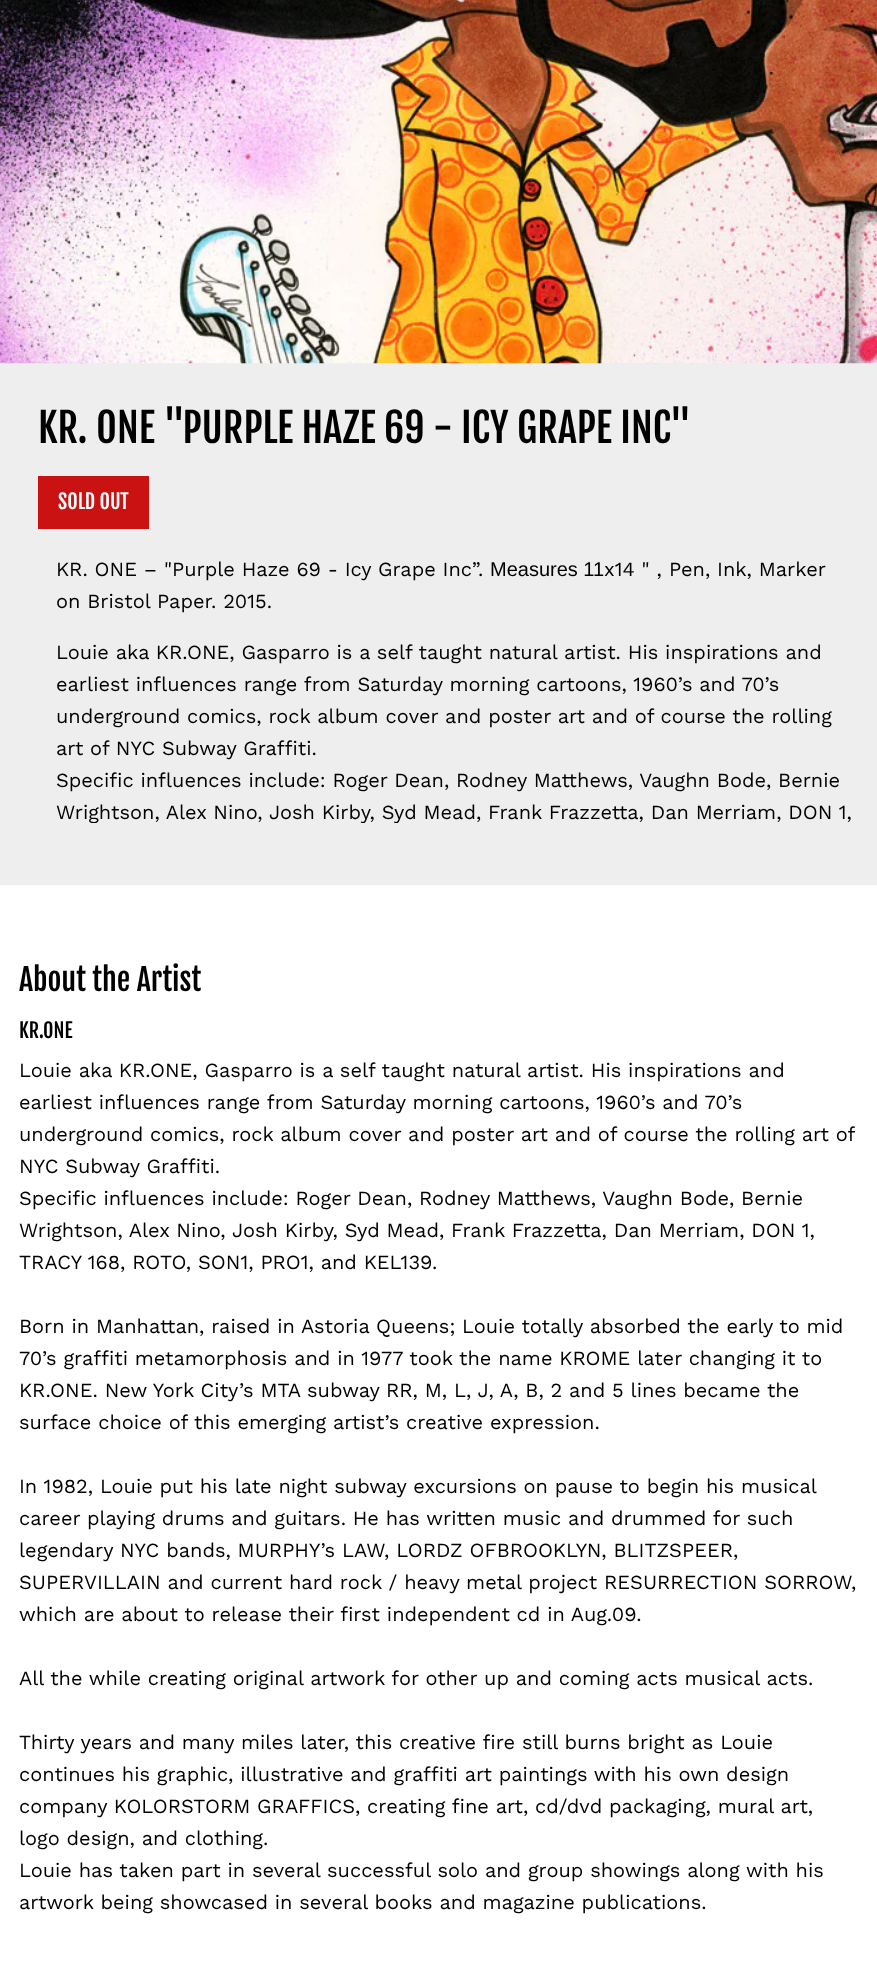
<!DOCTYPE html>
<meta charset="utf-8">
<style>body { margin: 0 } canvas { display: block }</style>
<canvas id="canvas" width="877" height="1967"></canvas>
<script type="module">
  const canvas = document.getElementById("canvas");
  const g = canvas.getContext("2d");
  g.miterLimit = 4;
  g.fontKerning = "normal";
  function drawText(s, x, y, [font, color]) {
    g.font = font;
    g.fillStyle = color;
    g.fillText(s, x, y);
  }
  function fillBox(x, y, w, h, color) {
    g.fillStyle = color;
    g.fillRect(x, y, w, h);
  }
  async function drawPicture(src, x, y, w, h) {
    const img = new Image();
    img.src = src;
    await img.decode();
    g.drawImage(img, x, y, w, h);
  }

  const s1 = ["40px Fjalla One", "#000000"];
  const s2 = ["20px Fjalla One", "#FFFFFF"];
  const s3 = ["20px Work Sans", "#000000"];
  const s4 = ["20px Liberation Sans", "#000000"];
  const s5 = ["30px Fjalla One", "#000000"];
  const s6 = ["20px Fjalla One", "#000000"];

  fillBox(0, 0, 877, 1967, "#FFFFFF");
  fillBox(0, 363, 877, 522, "#EEEEEE");
  await drawPicture("pic2.png", 194, 363, 490, 1);
  await drawPicture("pic1.png", 0, 0, 877, 364);
  drawText("KR. ONE \"PURPLE HAZE 69 - ICY GRAPE INC\"", 38, 443, s1);
  fillBox(38, 476, 111, 53, "#CB1213");
  drawText("SOLD OUT", 58, 509, s2);
  drawText("KR. ONE – \"Purple Haze 69 - Icy Grape Inc”.", 56, 576, s3);
  drawText("Measures 11", 490, 576, s4);
  drawText("x14 \" ,", 604, 576, s3);
  drawText("Pen, Ink, Marker", 669, 576, s3);
  drawText("on Bristol Paper. 2015.", 56, 608, s3);
  drawText("Louie aka KR.ONE, Gasparro is a self taught natural artist. His inspirations and", 56, 659, s3);
  drawText("earliest influences range from Saturday morning cartoons, 1960’s and 70’s", 56, 691, s3);
  drawText("underground comics, rock album cover and poster art and of course the rolling", 56, 723, s3);
  drawText("art of NYC Subway Graffiti.", 56, 755, s3);
  drawText("Specific influences include: Roger Dean, Rodney Matthews, Vaughn Bode, Bernie", 56, 787, s3);
  g.save();
  g.beginPath();
  g.rect(38, 554, 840, 269);
  g.clip();
  drawText("Wrightson, Alex Nino, Josh Kirby, Syd Mead, Frank Frazzetta, Dan Merriam, DON 1,", 56, 819, s3);
  g.restore();
  drawText("About the Artist", 19, 991, s5);
  drawText("KR.ONE", 19, 1038, s6);
  drawText("Louie aka KR.ONE, Gasparro is a self taught natural artist. His inspirations and", 19, 1077, s3);
  drawText("earliest influences range from Saturday morning cartoons, 1960’s and 70’s", 19, 1109, s3);
  drawText("underground comics, rock album cover and poster art and of course the rolling art of", 19, 1141, s3);
  drawText("NYC Subway Graffiti.", 19, 1173, s3);
  drawText("Specific influences include: Roger Dean, Rodney Matthews, Vaughn Bode, Bernie", 19, 1205, s3);
  drawText("Wrightson, Alex Nino, Josh Kirby, Syd Mead, Frank Frazzetta, Dan Merriam, DON 1,", 19, 1237, s3);
  drawText("TRACY 168, ROTO, SON1, PRO1, and KEL139.", 19, 1269, s3);
  drawText("Born in Manhattan, raised in Astoria Queens; Louie totally absorbed the early to mid", 19, 1333, s3);
  drawText("70’s graffiti metamorphosis and in 1977 took the name KROME later changing it to", 19, 1365, s3);
  drawText("KR.ONE. New York City’s MTA subway RR, M, L, J, A, B, 2 and 5 lines became the", 19, 1397, s3);
  drawText("surface choice of this emerging artist’s creative expression.", 19, 1429, s3);
  drawText("In 1982, Louie put his late night subway excursions on pause to begin his musical", 19, 1493, s3);
  drawText("career playing drums and guitars. He has written music and drummed for such", 19, 1525, s3);
  drawText("legendary NYC bands, MURPHY’s LAW, LORDZ OFBROOKLYN, BLITZSPEER,", 19, 1557, s3);
  drawText("SUPERVILLAIN and current hard rock / heavy metal project RESURRECTION SORROW,", 19, 1589, s3);
  drawText("which are about to release their first independent cd in Aug.09.", 19, 1621, s3);
  drawText("All the while creating original artwork for other up and coming acts musical acts.", 19, 1685, s3);
  drawText("Thirty years and many miles later, this creative fire still burns bright as Louie", 19, 1749, s3);
  drawText("continues his graphic, illustrative and graffiti art paintings with his own design", 19, 1781, s3);
  drawText("company KOLORSTORM GRAFFICS, creating fine art, cd/dvd packaging, mural art,", 19, 1813, s3);
  drawText("logo design, and clothing.", 19, 1845, s3);
  drawText("Louie has taken part in several successful solo and group showings along with his", 19, 1877, s3);
  drawText("artwork being showcased in several books and magazine publications.", 19, 1909, s3);
</script>
